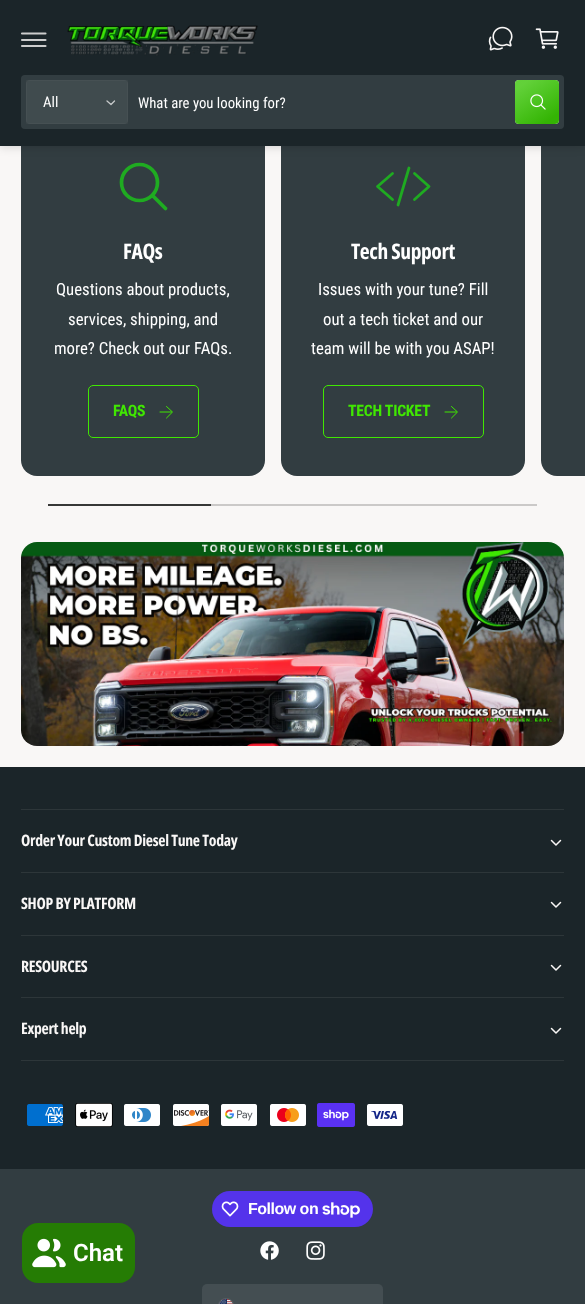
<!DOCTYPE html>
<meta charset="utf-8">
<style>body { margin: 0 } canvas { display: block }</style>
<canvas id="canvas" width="585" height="1304"></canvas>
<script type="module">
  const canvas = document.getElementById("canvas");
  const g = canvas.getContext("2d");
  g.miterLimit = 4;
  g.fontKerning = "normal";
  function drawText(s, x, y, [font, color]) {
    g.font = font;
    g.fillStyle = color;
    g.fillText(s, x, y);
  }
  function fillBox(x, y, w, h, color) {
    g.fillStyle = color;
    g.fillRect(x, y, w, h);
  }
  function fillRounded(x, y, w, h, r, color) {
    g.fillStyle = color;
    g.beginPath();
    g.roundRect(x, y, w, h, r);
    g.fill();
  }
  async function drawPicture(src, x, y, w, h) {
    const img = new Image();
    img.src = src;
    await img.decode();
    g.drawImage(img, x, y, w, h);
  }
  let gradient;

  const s1 = ["14.75px Roboto Condensed", "#FFFFFF"];
  const s2 = ["bold 21.5px Open Sans Condensed", "#FFFFFF"];
  const s3 = ["16.75px Roboto Condensed", "#FFFFFF"];
  const s4 = ["bold 15.75px Roboto Condensed", "#40E702"];
  const s5 = ["bold 15.75px Open Sans Condensed", "#F9F7F6"];
  const s6 = ["bold 16px Liberation Sans", "#FFFFFF"];
  const s7 = ["600 24px Roboto", "#FFFFFF"];

  fillBox(0, 0, 585, 1304, "#F9F7F6");
  fillRounded(21, 120, 244, 356, 16, "#323D41");
  g.beginPath();
  g.moveTo(139.5, 164.5);
  g.bezierCurveTo(129.5, 164.5, 121.5, 172.5, 121.5, 182.5);
  g.bezierCurveTo(121.5, 192.5, 129.5, 200.5, 139.5, 200.5);
  g.bezierCurveTo(149.5, 200.5, 157.5, 192.5, 157.5, 182.5);
  g.bezierCurveTo(157.5, 172.5, 149.5, 164.5, 139.5, 164.5);
  g.closePath();
  g.strokeStyle = "#1FAB21";
  g.lineWidth = 3.7;
  g.stroke();
  fillRounded(281, 120, 244, 356, 16, "#323D41");
  g.beginPath();
  g.roundRect(541, 120, 44, 356, [16, 0, 0, 16]);
  g.fill();
  g.fillStyle = "rgba(0, 0, 0, 0.15)";
  g.filter = "blur(5px)";
  g.beginPath();
  g.rect(0, 1, 585, 146);
  g.fill();
  g.filter = "none";
  fillBox(0, 0, 585, 146, "#1B2529");
  g.beginPath();
  g.moveTo(22, 33.5);
  g.lineTo(45.5, 33.5);
  g.moveTo(22, 40);
  g.lineTo(45.5, 40);
  g.moveTo(22, 46);
  g.lineTo(45.5, 46);
  g.strokeStyle = "#CDCDCD";
  g.lineWidth = 2.1;
  g.lineCap = "round";
  g.stroke();
  await drawPicture("pic1.png", 67, 25, 191, 31);
  await drawPicture("pic2.png", 488, 26, 25, 25);
  await drawPicture("pic3.png", 535, 28, 24, 21);
  gradient = g.createLinearGradient(160, 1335, 425, -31);
  gradient.addColorStop(0.15, "#1B2529");
  gradient.addColorStop(0.82, "#323D41");
  g.fillStyle = gradient;
  g.beginPath();
  g.roundRect(21, 75, 543, 54, 4);
  g.fill();
  fillRounded(26, 80, 102, 44, 4, "#404B4E");
  g.strokeStyle = "rgba(255, 255, 255, 0.03)";
  g.lineWidth = 1;
  g.strokeRect(26.5, 80.5, 101, 43);
  drawText("All", 43, 107, s1);
  g.beginPath();
  g.moveTo(107, 101);
  g.lineTo(111, 104.5);
  g.lineTo(114.5, 101);
  g.strokeStyle = "#C6C9CA";
  g.lineWidth = 1.3;
  g.lineJoin = "round";
  g.stroke();
  drawText("What are you looking for?", 138, 108, s1);
  fillRounded(515, 80, 44, 44, 4, "#FFFFFF");
  gradient = g.createLinearGradient(520, 77, 554, 127);
  gradient.addColorStop(0.13, "rgba(56, 196, 4, 0.79)");
  gradient.addColorStop(0.86, "#34B404");
  g.fillStyle = gradient;
  g.beginPath();
  g.roundRect(515, 80, 44, 44, 4);
  g.fill();
  await drawPicture("pic4.png", 530, 94, 16, 16);
  g.beginPath();
  g.moveTo(153, 196);
  g.lineTo(165.5, 208.5);
  g.strokeStyle = "#1FAB21";
  g.lineWidth = 3.7;
  g.lineJoin = "miter";
  g.stroke();
  g.letterSpacing = "-0.4px";
  drawText("FAQs", 123, 259, s2);
  g.letterSpacing = "0px";
  drawText("Questions about products,", 56, 295, s3);
  drawText("services, shipping, and", 68, 325, s3);
  drawText("more? Check out our FAQs.", 54, 354, s3);
  g.beginPath();
  g.moveTo(166.5, 406.5);
  g.lineTo(172.5, 412);
  g.lineTo(166.5, 418);
  g.moveTo(171.5, 412);
  g.lineTo(160, 412);
  g.strokeStyle = "#40E702";
  g.lineWidth = 1;
  g.lineJoin = "round";
  g.stroke();
  g.beginPath();
  g.roundRect(88.5, 385.5, 110, 52, 4.5);
  g.lineJoin = "miter";
  g.stroke();
  g.letterSpacing = "-0.25px";
  drawText("FAQS", 113, 416, s4);
  g.beginPath();
  g.moveTo(392.5, 199.5);
  g.lineTo(377.5, 186.5);
  g.lineTo(392.5, 173.5);
  g.moveTo(414.5, 199.5);
  g.lineTo(429, 186.5);
  g.lineTo(414.5, 173.5);
  g.moveTo(409, 168);
  g.lineTo(398, 205);
  g.strokeStyle = "#1FAB21";
  g.lineWidth = 2.8;
  g.lineJoin = "round";
  g.stroke();
  g.letterSpacing = "-0.4px";
  drawText("Tech Support", 351, 259, s2);
  g.letterSpacing = "0px";
  drawText("Issues with your tune? Fill", 318, 295, s3);
  drawText("out a tech ticket and our", 323, 325, s3);
  drawText("team will be with you ASAP!", 311, 354, s3);
  g.beginPath();
  g.moveTo(451.5, 406.5);
  g.lineTo(457.5, 412);
  g.lineTo(451.5, 418);
  g.moveTo(456.5, 412);
  g.lineTo(445, 412);
  g.strokeStyle = "#40E702";
  g.lineWidth = 1;
  g.stroke();
  g.beginPath();
  g.roundRect(323.5, 385.5, 160, 52, 4.5);
  g.lineJoin = "miter";
  g.stroke();
  g.letterSpacing = "-0.25px";
  drawText("TECH TICKET", 348, 416, s4);
  fillBox(211, 504, 326, 2, "#CBC9C8");
  fillBox(48, 504, 163, 2, "#373736");
  await drawPicture("pic5.png", 21, 542, 543, 204);
  fillBox(0, 767, 585, 402, "#1B2529");
  fillBox(21, 809, 543, 1, "#2D3639");
  fillBox(21, 872, 543, 1, "#2D3639");
  g.letterSpacing = "-0.3px";
  drawText("Order Your Custom Diesel Tune Today", 21, 846, s5);
  g.beginPath();
  g.moveTo(551.5, 840.5);
  g.lineTo(556, 845);
  g.lineTo(560.5, 840.5);
  g.strokeStyle = "#F9F7F6";
  g.lineWidth = 1.5;
  g.lineJoin = "round";
  g.stroke();
  fillBox(21, 935, 543, 1, "#2D3639");
  drawText("SHOP BY PLATFORM", 21, 909, s5);
  g.beginPath();
  g.moveTo(551.5, 902.5);
  g.lineTo(556, 907);
  g.lineTo(560.5, 902.5);
  g.stroke();
  fillBox(21, 997, 543, 1, "#2D3639");
  drawText("RESOURCES", 21, 972, s5);
  g.beginPath();
  g.moveTo(551.5, 965.5);
  g.lineTo(556, 970);
  g.lineTo(560.5, 965.5);
  g.stroke();
  fillBox(21, 1060, 543, 1, "#2D3639");
  drawText("Expert help", 21, 1034, s5);
  g.beginPath();
  g.moveTo(551.5, 1028.5);
  g.lineTo(556, 1033);
  g.lineTo(560.5, 1028.5);
  g.stroke();
  await drawPicture("pic6.png", 27, 1104, 36, 22);
  await drawPicture("pic7.png", 75, 1103, 38, 24);
  await drawPicture("pic8.png", 124, 1104, 36, 22);
  await drawPicture("pic9.png", 173, 1104, 36, 22);
  await drawPicture("pic10.png", 221, 1104, 36, 22);
  await drawPicture("pic11.png", 270, 1104, 36, 22);
  await drawPicture("pic12.png", 317, 1103, 38, 24);
  await drawPicture("pic13.png", 367, 1104, 36, 22);
  fillBox(0, 1169, 585, 135, "#323D41");
  fillRounded(212, 1191, 161, 36, 18, "#5433EB");
  await drawPicture("pic14.png", 221, 1201, 18, 16);
  g.letterSpacing = "-0.5px";
  drawText("Follow on", 248, 1214, s6);
  await drawPicture("pic15.png", 322, 1202, 38, 16);
  await drawPicture("pic16.png", 260, 1241, 19, 19);
  await drawPicture("pic17.png", 306, 1241, 19, 19);
  fillRounded(202, 1284, 181, 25, 5, "#444E52");
  g.beginPath();
  g.roundRect(218.5, 1298.5, 15, 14, 7.5);
  g.strokeStyle = "#576063";
  g.lineWidth = 1;
  g.lineJoin = "miter";
  g.stroke();
  await drawPicture("pic18.png", 219, 1299, 14, 5);
  fillRounded(22, 1223, 113, 60, 16, "#257C04");
  await drawPicture("pic19.png", 32, 1238, 34, 30);
  g.letterSpacing = "0px";
  drawText("Chat", 73, 1261, s7);
</script>
